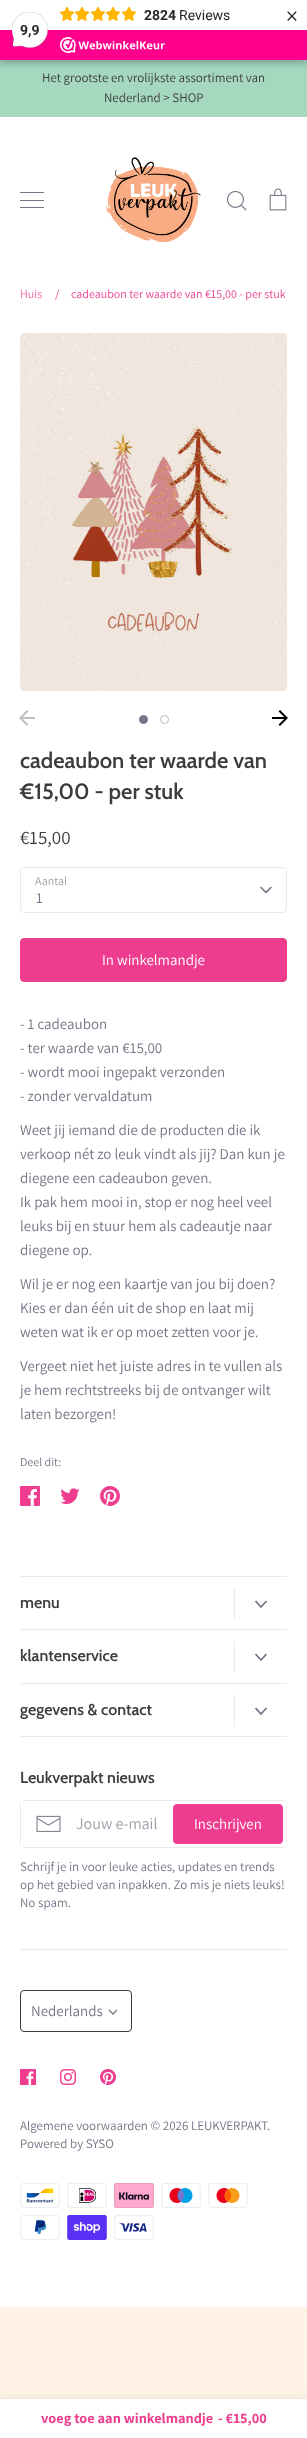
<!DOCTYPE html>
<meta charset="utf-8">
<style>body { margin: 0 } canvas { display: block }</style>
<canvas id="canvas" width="307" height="2438"></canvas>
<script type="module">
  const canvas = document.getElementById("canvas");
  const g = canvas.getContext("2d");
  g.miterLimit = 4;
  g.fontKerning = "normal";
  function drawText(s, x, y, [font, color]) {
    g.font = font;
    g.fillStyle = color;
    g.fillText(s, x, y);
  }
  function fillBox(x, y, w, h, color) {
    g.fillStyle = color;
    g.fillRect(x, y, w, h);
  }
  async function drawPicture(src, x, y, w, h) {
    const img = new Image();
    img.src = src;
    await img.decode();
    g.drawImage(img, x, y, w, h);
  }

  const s1 = ["bold 14px Roboto", "#272626"];
  const s2 = ["14px Roboto", "#272626"];
  const s3 = ["24px Assistant", "#272626"];
  const s4 = ["13px Assistant", "#3C3C3C"];
  const s5 = ["12px Assistant", "#F164A5"];
  const s6 = ["12px Assistant", "#EE3D8E"];
  const s7 = ["600 22px Cabin", "#3C3C3C"];
  const s8 = ["19px Assistant", "#3C3C3C"];
  const s9 = ["12px Assistant", "#9C9FAA"];
  const s10 = ["15px Assistant", "#727685"];
  const s11 = ["15px Assistant", "#FFFFFF"];
  const s12 = ["12px Assistant", "#727685"];
  const s13 = ["600 16px Cabin", "#3C3C3C"];
  const s14 = ["16px Assistant", "#9C9FAA"];
  const s15 = ["13px Assistant", "#727685"];
  const s16 = ["bold 14.4px Assistant", "#EE3D8E"];

  fillBox(0, 0, 307, 2438, "#FFF3E6");
  fillBox(0, 60, 307, 57, "#A6D8C0");
  g.fillStyle = "rgba(0, 0, 0, 0.15)";
  g.filter = "blur(3px)";
  g.beginPath();
  g.rect(-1, -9, 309, 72);
  g.fill();
  g.filter = "none";
  g.filter = "blur(5px)";
  g.beginPath();
  g.rect(0, 2, 307, 60);
  g.fill();
  g.filter = "none";
  fillBox(0, 0, 307, 30, "#FFFFFF");
  await drawPicture("pic1.png", 60, 7, 14, 14);
  await drawPicture("pic1.png", 75, 7, 14, 14);
  await drawPicture("pic1.png", 91, 7, 14, 14);
  await drawPicture("pic1.png", 106, 7, 14, 14);
  await drawPicture("pic1.png", 122, 7, 14, 14);
  drawText("2824", 144, 20, s1);
  drawText("Reviews", 179, 20, s2);
  drawText("×", 286, 24, s3);
  fillBox(0, 30, 307, 30, "#FE008C");
  await drawPicture("pic2.png", 12, 12, 36, 36);
  drawText("9,9", 20, 35, s1);
  await drawPicture("pic3.png", 60, 37, 105, 16);
  drawText("Het grootste en vrolijkste assortiment van", 42, 82, s4);
  drawText("Nederland > SHOP", 104, 102, s4);
  fillBox(0, 117, 307, 2190, "#FFFFFF");
  fillBox(20, 192, 24, 1, "#727685");
  fillBox(20, 200, 24, 1, "#727685");
  fillBox(20, 207, 24, 1, "#727685");
  await drawPicture("pic4.png", 106, 157, 95, 87);
  await drawPicture("pic5.png", 227, 191, 20, 20);
  await drawPicture("pic6.png", 269, 188, 18, 23);
  drawText("Huis", 20, 298, s5);
  drawText("/", 55, 298, s6);
  drawText("cadeaubon ter waarde van €15,00 - per stuk", 71, 298, s6);
  await drawPicture("pic7.png", 20, 333, 267, 358);
  await drawPicture("pic8.png", 19, 710, 16, 16);
  await drawPicture("pic9.png", 272, 710, 16, 16);
  g.fillStyle = "#727685";
  g.beginPath();
  g.arc(143.5, 719.5, 4, 0, Math.PI * 2);
  g.fill();
  g.strokeStyle = "#727685";
  g.stroke();
  g.beginPath();
  g.arc(164.5, 719.5, 4, 0, Math.PI * 2);
  g.strokeStyle = "#B9BBC2";
  g.stroke();
  drawText("cadeaubon ter waarde van", 20, 768, s7);
  drawText("€15,00 - per stuk", 20, 799, s7);
  drawText("€15,00", 20, 844, s8);
  drawText("Aantal", 35, 885, s9);
  g.beginPath();
  g.roundRect(20.5, 867.5, 266, 45, 3.5);
  g.strokeStyle = "#EAEAED";
  g.stroke();
  g.beginPath();
  g.moveTo(261, 887.5);
  g.lineTo(266, 892.5);
  g.lineTo(271, 887.5);
  g.strokeStyle = "#727685";
  g.lineWidth = 1.7;
  g.lineCap = "round";
  g.lineJoin = "round";
  g.stroke();
  drawText("1", 36, 903, s10);
  g.fillStyle = "#EE3D8E";
  g.beginPath();
  g.roundRect(20.5, 938.5, 266, 43, 3.5);
  g.fill();
  g.strokeStyle = "#EE3D8E";
  g.lineWidth = 1;
  g.lineJoin = "miter";
  g.stroke();
  drawText("In winkelmandje", 102, 965, s11);
  drawText("- 1 cadeaubon", 20, 1029, s10);
  drawText("- ter waarde van €15,00", 20, 1053, s10);
  drawText("- wordt mooi ingepakt verzonden", 20, 1077, s10);
  drawText("- zonder vervaldatum", 20, 1101, s10);
  drawText("Weet jij iemand die de producten die ik", 20, 1135, s10);
  drawText("verkoop nét zo leuk vindt als jij? Dan kun je", 20, 1159, s10);
  drawText("diegene een cadeaubon geven.", 20, 1183, s10);
  drawText("Ik pak hem mooi in, stop er nog heel veel", 20, 1207, s10);
  drawText("leuks bij en stuur hem als cadeautje naar", 20, 1231, s10);
  drawText("diegene op.", 20, 1255, s10);
  drawText("Wil je er nog een kaartje van jou bij doen?", 20, 1289, s10);
  drawText("Kies er dan één uit de shop en laat mij", 20, 1313, s10);
  drawText("weten wat ik er op moet zetten voor je.", 20, 1337, s10);
  drawText("Vergeet niet het juiste adres in te vullen als", 20, 1371, s10);
  drawText("je hem rechtstreeks bij de ontvanger wilt", 20, 1395, s10);
  drawText("laten bezorgen!", 20, 1419, s10);
  drawText("Deel dit:", 20, 1466, s12);
  await drawPicture("pic10.png", 20, 1486, 20, 20);
  await drawPicture("pic11.png", 60, 1488, 20, 16);
  await drawPicture("pic12.png", 100, 1486, 20, 20);
  fillBox(20, 1576, 267, 1, "#EAEAED");
  fillBox(20, 1629, 267, 1, "#EAEAED");
  drawText("menu", 20, 1608, s13);
  fillBox(234, 1588, 1, 31, "#EAEAED");
  g.beginPath();
  g.moveTo(255.5, 1601);
  g.lineTo(261, 1607);
  g.lineTo(266.5, 1601);
  g.moveTo(255.5, 1654);
  g.lineTo(261, 1660);
  g.lineTo(266.5, 1654);
  g.strokeStyle = "#727685";
  g.lineWidth = 1.8;
  g.lineCap = "butt";
  g.stroke();
  fillBox(20, 1683, 267, 1, "#EAEAED");
  drawText("klantenservice", 20, 1661, s13);
  fillBox(234, 1641, 1, 31, "#EAEAED");
  fillBox(20, 1736, 267, 1, "#EAEAED");
  drawText("gegevens & contact", 20, 1715, s13);
  fillBox(234, 1694, 1, 32, "#EAEAED");
  g.beginPath();
  g.moveTo(255.5, 1708);
  g.lineTo(261, 1714);
  g.lineTo(266.5, 1708);
  g.stroke();
  fillBox(20, 1949, 267, 1, "#EAEAED");
  drawText("Leukverpakt nieuws", 20, 1783, s13);
  g.beginPath();
  g.roundRect(20.5, 1800.5, 266, 47, 3.5);
  g.strokeStyle = "#EAEAED";
  g.lineWidth = 1;
  g.stroke();
  await drawPicture("pic13.png", 36, 1815, 25, 17);
  fillBox(21, 1801, 2, 46, "#FFFFFF");
  drawText("Jouw e-mail", 76, 1829, s14);
  g.fillStyle = "#EE3D8E";
  g.beginPath();
  g.roundRect(173.5, 1804.5, 109, 39, 3.5);
  g.fill();
  g.strokeStyle = "#EE3D8E";
  g.stroke();
  drawText("Inschrijven", 194, 1829, s11);
  drawText("Schrijf je in voor leuke acties, updates en trends", 20, 1871, s15);
  drawText("op het gebied van inpakken. Zo mis je niets leuks!", 20, 1889, s15);
  drawText("No spam.", 20, 1907, s15);
  g.beginPath();
  g.roundRect(20.5, 1990.5, 111, 41, 3.5);
  g.strokeStyle = "#3C3C3C";
  g.stroke();
  drawText("Nederlands", 31, 2016, s10);
  g.beginPath();
  g.moveTo(109, 2010);
  g.lineTo(113, 2014);
  g.lineTo(117, 2010);
  g.strokeStyle = "#727685";
  g.lineWidth = 1.3;
  g.stroke();
  await drawPicture("pic14.png", 20, 2069, 16, 16);
  await drawPicture("pic15.png", 60, 2069, 16, 16);
  await drawPicture("pic16.png", 100, 2069, 16, 16);
  drawText("Algemene voorwaarden © 2026 LEUKVERPAKT", 20, 2130, s15);
  drawText(".", 267, 2130, s15);
  drawText("Powered by SYSO", 20, 2148, s15);
  await drawPicture("pic17.png", 20, 2183, 40, 25);
  await drawPicture("pic18.png", 67, 2183, 40, 25);
  await drawPicture("pic19.png", 114, 2183, 40, 25);
  await drawPicture("pic20.png", 161, 2183, 40, 25);
  await drawPicture("pic21.png", 208, 2183, 40, 25);
  await drawPicture("pic22.png", 20, 2215, 40, 25);
  await drawPicture("pic23.png", 67, 2215, 40, 25);
  await drawPicture("pic24.png", 114, 2215, 40, 25);
  g.fillStyle = "rgba(0, 0, 0, 0.09)";
  g.filter = "blur(5px)";
  g.beginPath();
  g.rect(0, 2399, 307, 39);
  g.fill();
  g.filter = "none";
  fillBox(0, 2399, 307, 39, "#FFFFFF");
  drawText("voeg toe aan winkelmandje", 41, 2423, s16);
  drawText("- €15,00", 218, 2423, s16);
</script>
